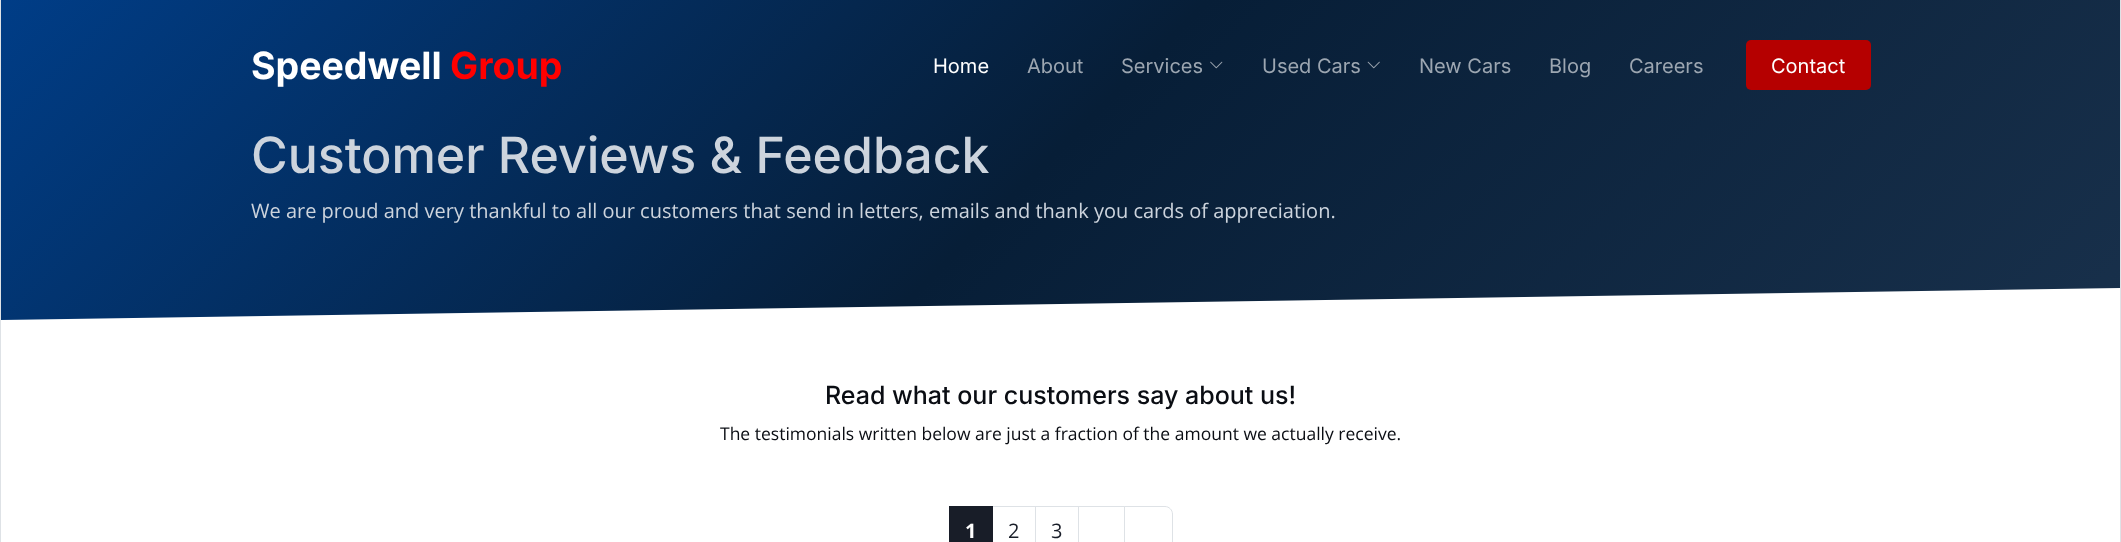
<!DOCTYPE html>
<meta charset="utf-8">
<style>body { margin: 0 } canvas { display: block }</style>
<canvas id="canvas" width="2121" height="542"></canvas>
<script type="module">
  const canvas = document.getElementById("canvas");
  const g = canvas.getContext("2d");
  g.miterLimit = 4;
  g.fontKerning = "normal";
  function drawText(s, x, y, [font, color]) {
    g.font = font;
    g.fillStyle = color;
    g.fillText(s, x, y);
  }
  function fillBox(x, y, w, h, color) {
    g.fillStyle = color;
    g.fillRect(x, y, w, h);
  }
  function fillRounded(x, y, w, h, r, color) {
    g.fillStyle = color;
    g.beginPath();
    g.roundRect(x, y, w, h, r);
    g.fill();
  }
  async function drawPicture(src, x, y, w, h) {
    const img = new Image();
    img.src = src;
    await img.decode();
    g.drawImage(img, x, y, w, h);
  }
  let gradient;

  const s1 = ["bold 37.5px Inter", "#FFFFFF"];
  const s2 = ["bold 37.5px Inter", "#FF0000"];
  const s3 = ["20px Inter", "#FFFFFF"];
  const s4 = ["20px Inter", "#9CA6B1"];
  const s5 = ["500 50px Inter", "#CDD4DD"];
  const s6 = ["20px Open Sans", "#CDD4DD"];
  const s7 = ["500 25px Inter", "#0A0D13"];
  const s8 = ["17.5px Open Sans", "#0A0D13"];
  const s9 = ["bold 20px Open Sans", "#FFFFFF"];
  const s10 = ["20px Open Sans", "#181D28"];

  fillBox(0, 0, 2121, 542, "#FFFFFF");
  gradient = g.createLinearGradient(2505, 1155, 676, -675);
  gradient.addColorStop(0, "#182432");
  gradient.addColorStop(0.33, "#18304B");
  gradient.addColorStop(0.67, "#071E37");
  gradient.addColorStop(1, "#003D87");
  g.fillStyle = gradient;
  g.beginPath();
  g.moveTo(1, 0);
  g.lineTo(1, 320);
  g.lineTo(2120, 288);
  g.lineTo(2120, 0);
  g.closePath();
  g.fill();
  drawText("Speedwell", 251, 79, s1);
  drawText("Group", 450, 79, s2);
  drawText("Home", 933, 73, s3);
  drawText("About", 1027, 73, s4);
  drawText("Services", 1121, 73, s4);
  await drawPicture("pic1.png", 1210, 61, 13, 8);
  drawText("Used Cars", 1262, 73, s4);
  await drawPicture("pic2.png", 1367, 61, 13, 8);
  drawText("New Cars", 1419, 73, s4);
  drawText("Blog", 1549, 73, s4);
  drawText("Careers", 1629, 73, s4);
  fillRounded(1746, 40, 125, 50, 5, "#B50000");
  drawText("Contact", 1771, 73, s3);
  fillBox(2120, 0, 1, 542, "#DEE2E6");
  fillBox(0, 0, 1, 542, "#DEE2E6");
  drawText("Customer Reviews & Feedback", 251, 173, s5);
  drawText("We are proud and very thankful to all our customers that send in letters, emails and thank you cards of appreciation.", 251, 218, s6);
  drawText("Read what our customers say about us!", 825, 404, s7);
  drawText("The testimonials written below are just a fraction of the amount we actually receive.", 720, 440, s8);
  g.strokeStyle = "#DEE2E6";
  g.strokeRect(991.5, 506.5, 44, 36);
  fillBox(949, 506, 44, 36, "#181D28");
  drawText("1", 965, 538, s9);
  drawText("2", 1008, 538, s10);
  g.strokeRect(1035.5, 506.5, 43, 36);
  drawText("3", 1051, 538, s10);
  g.strokeRect(1078.5, 506.5, 46, 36);
  g.fillStyle = "#FFFFFF";
  g.beginPath();
  g.moveTo(1124.5, 506.5);
  g.lineTo(1165, 506.5);
  g.bezierCurveTo(1169, 506.5, 1172.5, 510, 1172.5, 514);
  g.lineTo(1172.5, 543);
  g.bezierCurveTo(1172.5, 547, 1169, 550.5, 1165, 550.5);
  g.lineTo(1124.5, 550.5);
  g.closePath();
  g.fill();
  g.stroke();
</script>
